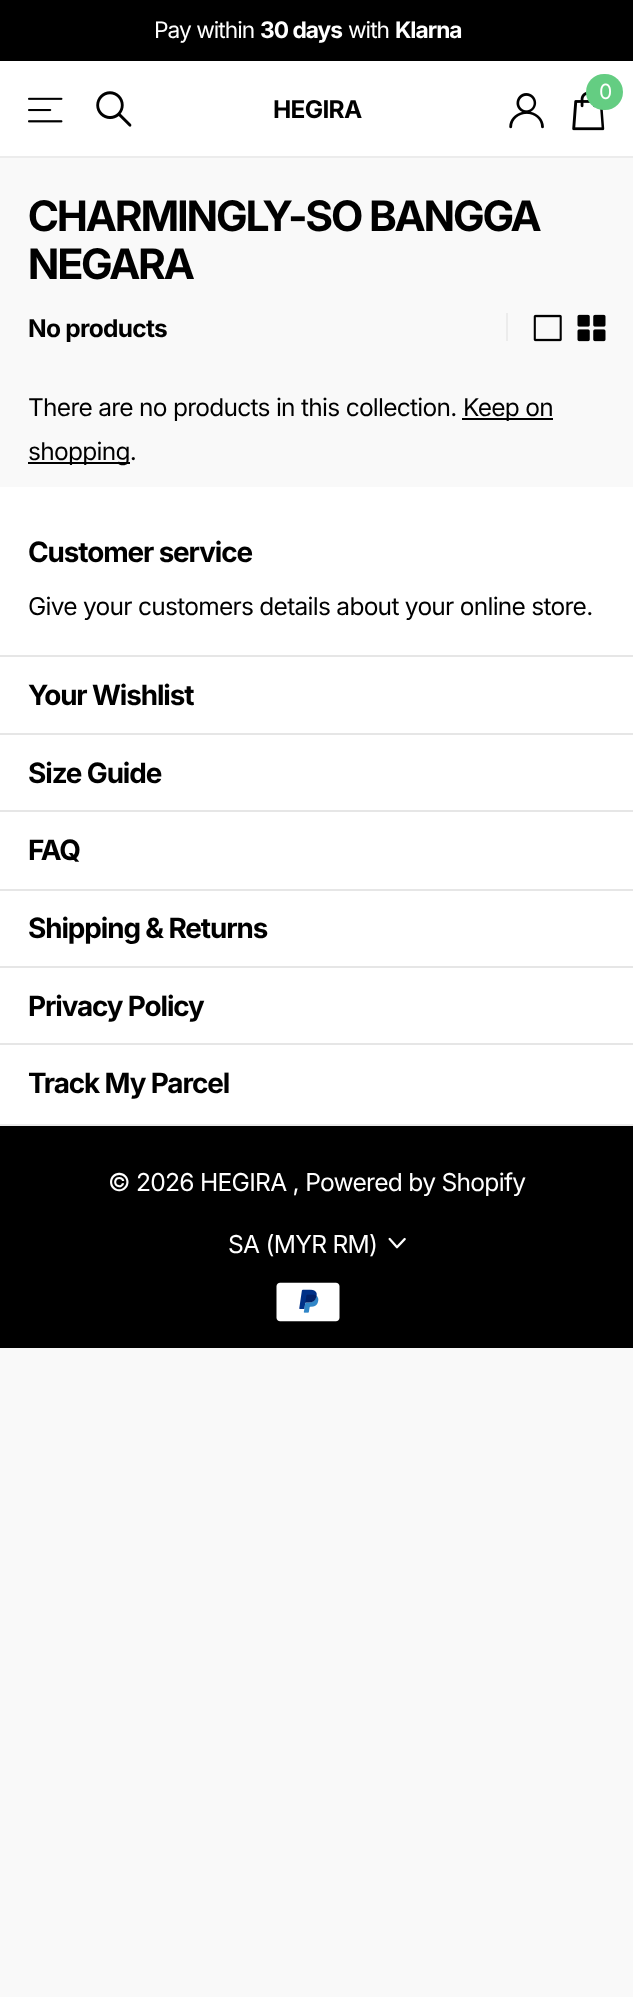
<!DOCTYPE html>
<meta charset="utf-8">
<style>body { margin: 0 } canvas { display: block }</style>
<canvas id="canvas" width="633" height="1997"></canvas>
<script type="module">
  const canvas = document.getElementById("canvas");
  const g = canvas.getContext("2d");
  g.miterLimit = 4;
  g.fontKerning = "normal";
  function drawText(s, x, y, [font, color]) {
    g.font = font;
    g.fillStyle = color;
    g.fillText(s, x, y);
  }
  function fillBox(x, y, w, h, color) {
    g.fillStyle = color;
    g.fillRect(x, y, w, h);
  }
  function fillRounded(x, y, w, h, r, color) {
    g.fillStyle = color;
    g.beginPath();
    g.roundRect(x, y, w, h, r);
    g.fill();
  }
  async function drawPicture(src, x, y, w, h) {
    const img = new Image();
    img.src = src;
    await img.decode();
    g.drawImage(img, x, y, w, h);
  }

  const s1 = ["22.75px Inter", "#FFFFFF"];
  const s2 = ["bold 22.75px 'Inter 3'", "#FFFFFF"];
  const s3 = ["bold 24.5px 'Inter 3'", "#000000"];
  const s4 = ["21px Inter", "#FFFFFF"];
  const s5 = ["bold 42px Inter", "#000000"];
  const s6 = ["24.5px Inter", "#000000"];
  const s7 = ["bold 28px 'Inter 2'", "#000000"];
  const s8 = ["24.6px Inter", "#FFFFFF"];

  fillBox(0, 0, 633, 1997, "#F9F9F9");
  fillBox(0, 0, 633, 61, "#000000");
  g.letterSpacing = "-1px";
  drawText("Pay within", 154, 38, s1);
  drawText("30 days", 260, 38, s2);
  drawText("with", 348, 38, s1);
  drawText("Klarna", 395, 38, s2);
  fillBox(0, 61, 633, 95, "#FFFFFF");
  fillBox(0, 156, 633, 2, "#ECECEC");
  await drawPicture("pic1.png", 28, 97, 35, 26);
  await drawPicture("pic2.png", 96, 91, 36, 36);
  g.letterSpacing = "-0.73px";
  drawText("HEGIRA", 273, 118, s3);
  await drawPicture("pic3.png", 509, 93, 35, 36);
  await drawPicture("pic4.png", 572, 91, 33, 40);
  fillRounded(586, 74, 37, 36, 18, "#64CD82");
  g.letterSpacing = "-1px";
  drawText("0", 599, 99, s4);
  g.letterSpacing = "-1.7px";
  drawText("CHARMINGLY-SO BANGGA", 28, 231, s5);
  drawText("NEGARA", 28, 279, s5);
  g.letterSpacing = "-0.73px";
  drawText("No products", 28, 337, s3);
  fillBox(506, 313, 2, 28, "#ECECEC");
  await drawPicture("pic5.png", 533, 314, 29, 28);
  await drawPicture("pic6.png", 577, 314, 29, 28);
  drawText("There are no products in this collection.", 28, 416, s6);
  fillBox(462, 418, 91, 2, "#000000");
  drawText("Keep on", 463, 416, s6);
  fillBox(28, 462, 102, 2, "#000000");
  drawText("shopping.", 28, 460, s6);
  fillBox(0, 487, 633, 637, "#FFFFFF");
  g.letterSpacing = "-1.1px";
  drawText("Customer service", 28, 562, s7);
  g.letterSpacing = "-0.73px";
  drawText("Give your customers details about your online store.", 28, 615, s6);
  fillBox(0, 655, 633, 2, "#E6E6E6");
  g.letterSpacing = "-1.1px";
  drawText("Your Wishlist", 28, 705, s7);
  fillBox(0, 733, 633, 2, "#E6E6E6");
  drawText("Size Guide", 28, 783, s7);
  fillBox(0, 810, 633, 2, "#E6E6E6");
  drawText("FAQ", 28, 860, s7);
  fillBox(0, 889, 633, 2, "#E6E6E6");
  drawText("Shipping & Returns", 28, 938, s7);
  fillBox(0, 966, 633, 2, "#E6E6E6");
  drawText("Privacy Policy", 28, 1016, s7);
  fillBox(0, 1043, 633, 2, "#E6E6E6");
  drawText("Track My Parcel", 28, 1093, s7);
  fillBox(0, 1126, 633, 222, "#000000");
  fillBox(0, 1124, 633, 2, "#ECECEC");
  g.letterSpacing = "-0.73px";
  drawText("© 2026 HEGIRA , Powered by Shopify", 108, 1191, s8);
  drawText("SA (MYR RM)", 228, 1253, s8);
  await drawPicture("pic7.png", 388, 1237, 18, 12);
  await drawPicture("pic8.png", 276, 1282, 64, 40);
</script>
